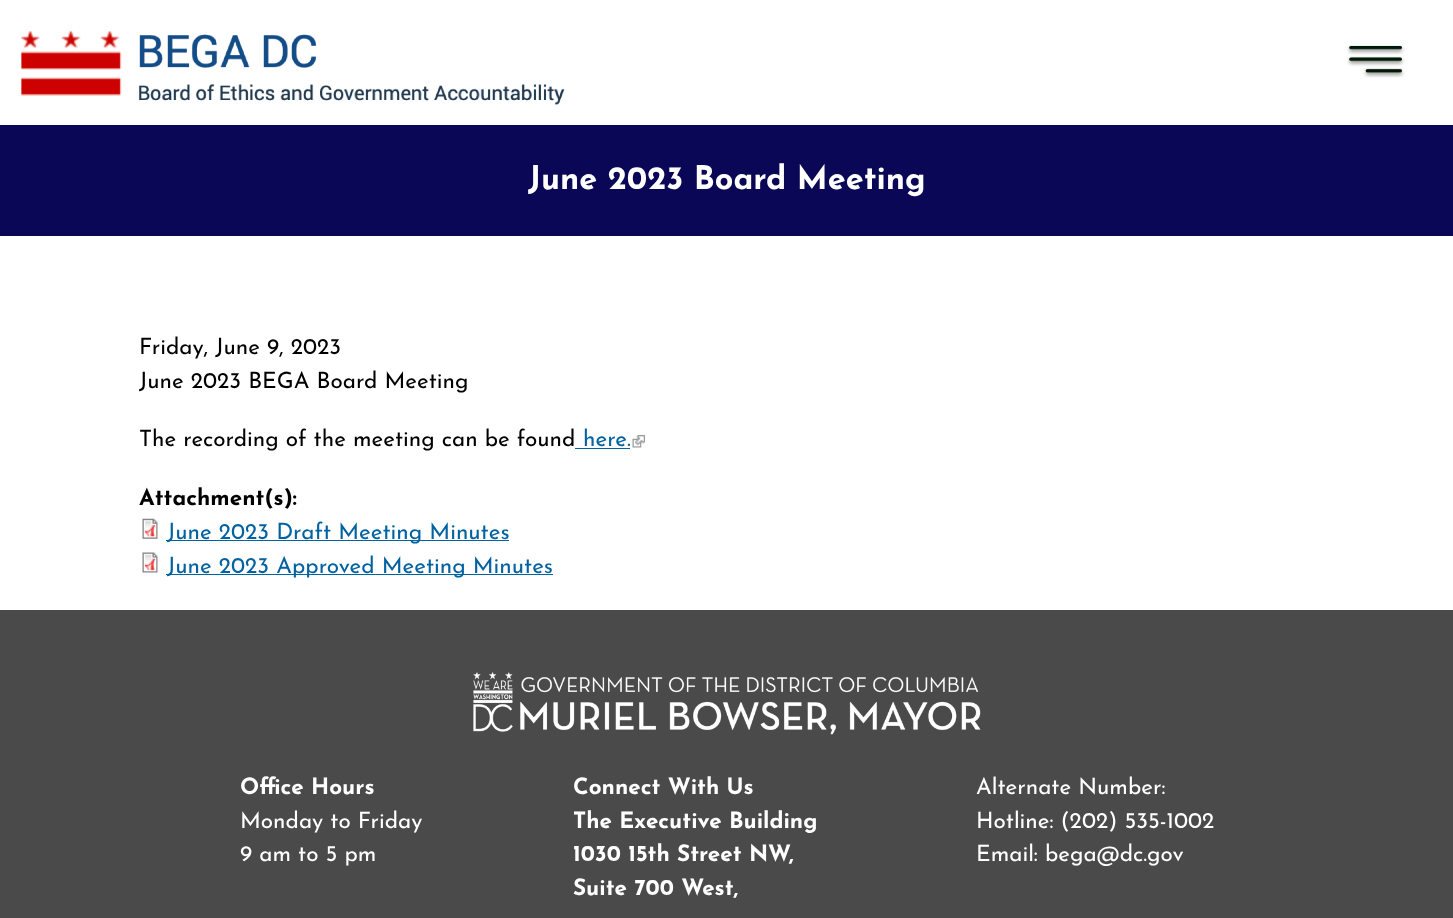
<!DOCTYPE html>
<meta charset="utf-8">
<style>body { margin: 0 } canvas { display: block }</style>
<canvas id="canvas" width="1453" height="918"></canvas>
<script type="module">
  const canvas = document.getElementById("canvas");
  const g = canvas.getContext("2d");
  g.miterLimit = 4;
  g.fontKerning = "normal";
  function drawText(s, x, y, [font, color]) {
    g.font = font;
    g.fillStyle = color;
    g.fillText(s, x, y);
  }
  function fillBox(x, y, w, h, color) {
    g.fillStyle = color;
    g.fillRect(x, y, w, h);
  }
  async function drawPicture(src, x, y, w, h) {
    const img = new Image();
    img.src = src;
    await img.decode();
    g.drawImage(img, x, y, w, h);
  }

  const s1 = ["bold 32.5px Josefin Sans", "#FFFFFF"];
  const s2 = ["22.5px Josefin Sans", "#000000"];
  const s3 = ["22.5px Josefin Sans", "#0062A0"];
  const s4 = ["bold 22.5px Josefin Sans", "#000000"];
  const s5 = ["bold 22.5px Josefin Sans", "#FFFFFF"];
  const s6 = ["22.5px Josefin Sans", "#FFFFFF"];

  fillBox(0, 0, 1453, 918, "#FFFFFF");
  await drawPicture("pic1.png", 21, 31, 544, 74);
  await drawPicture("pic2.png", 1347, 45, 58, 33);
  fillBox(0, 125, 1453, 111, "#090756");
  drawText("June 2023 Board Meeting", 528, 189, s1);
  drawText("Friday, June 9, 2023", 139, 354, s2);
  drawText("June 2023 BEGA Board Meeting", 139, 388, s2);
  drawText("The recording of the meeting can be found", 139, 446, s2);
  drawText("here.", 583, 446, s3);
  fillBox(575, 448, 55, 1, "#0062A0");
  await drawPicture("pic3.png", 632, 435, 13, 13);
  drawText("Attachment(s):", 139, 505, s4);
  await drawPicture("pic4.png", 142, 518, 16, 21);
  fillBox(166, 540, 343, 1, "#0062A0");
  drawText("June 2023 Draft Meeting Minutes", 167, 539, s3);
  await drawPicture("pic5.png", 142, 552, 16, 21);
  fillBox(166, 574, 387, 1, "#0062A0");
  drawText("June 2023 Approved Meeting Minutes", 167, 573, s3);
  fillBox(0, 610, 1453, 308, "#4A4A4A");
  await drawPicture("pic6.png", 473, 672, 508, 63);
  drawText("Office Hours", 240, 794, s5);
  drawText("Monday to Friday", 240, 828, s6);
  drawText("9 am to 5 pm", 240, 861, s6);
  drawText("Connect With Us", 573, 794, s5);
  drawText("The Executive Building", 573, 828, s5);
  drawText("1030 15th Street NW,", 573, 861, s5);
  drawText("Suite 700 West,", 573, 895, s5);
  drawText("Alternate Number:", 976, 794, s6);
  drawText("Hotline: (202) 535-1002", 976, 828, s6);
  drawText("Email: bega@dc.gov", 976, 861, s6);
</script>
